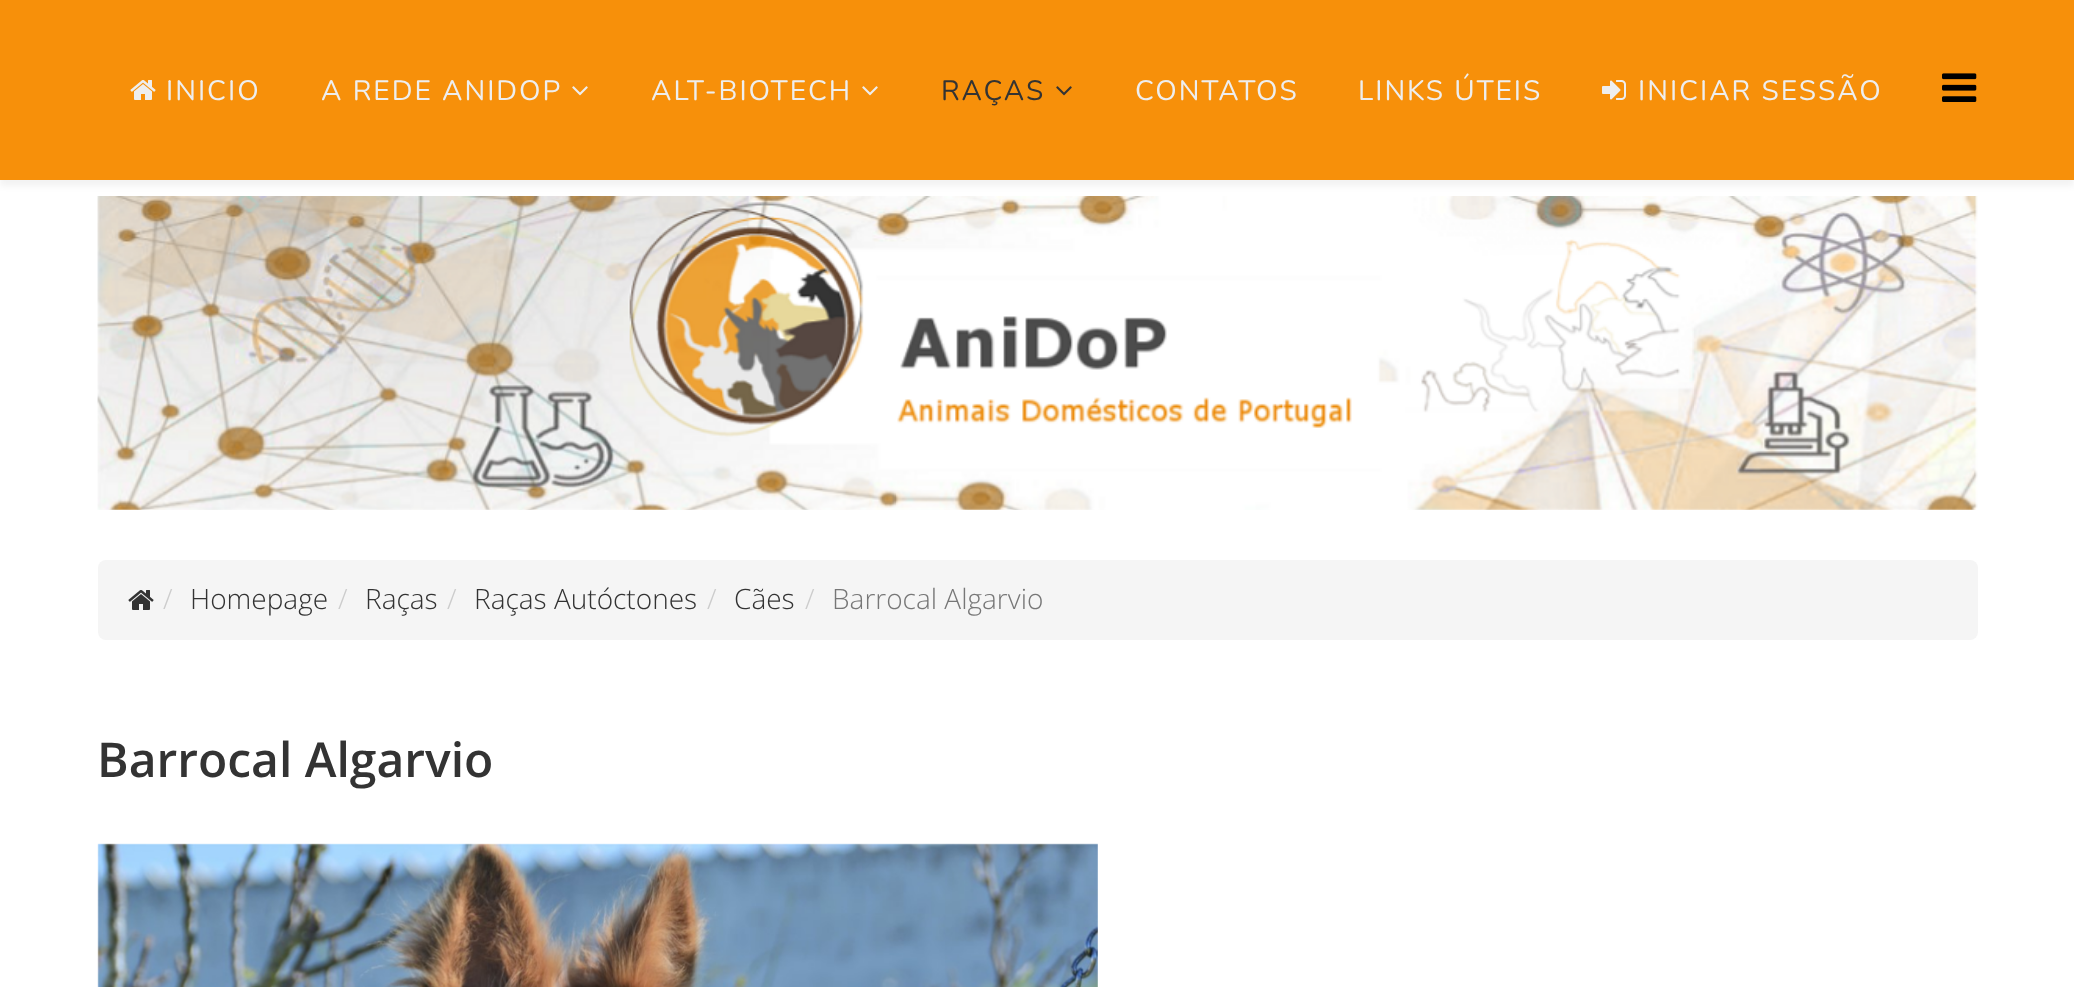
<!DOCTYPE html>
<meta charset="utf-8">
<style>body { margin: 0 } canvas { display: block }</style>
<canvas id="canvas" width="2074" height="987"></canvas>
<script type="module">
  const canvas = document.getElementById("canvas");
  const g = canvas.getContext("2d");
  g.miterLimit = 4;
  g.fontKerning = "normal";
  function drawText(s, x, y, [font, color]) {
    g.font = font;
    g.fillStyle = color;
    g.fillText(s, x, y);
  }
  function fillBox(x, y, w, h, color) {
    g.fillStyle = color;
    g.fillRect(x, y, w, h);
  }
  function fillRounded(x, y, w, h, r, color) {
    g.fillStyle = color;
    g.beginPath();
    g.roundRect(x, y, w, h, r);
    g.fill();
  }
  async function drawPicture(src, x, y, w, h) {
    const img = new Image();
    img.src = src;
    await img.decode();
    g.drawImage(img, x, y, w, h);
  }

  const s1 = ["28px Nunito", "#EEEEEE"];
  const s2 = ["28px Nunito", "#333333"];
  const s3 = ["300 28px Open Sans", "#CCCCCC"];
  const s4 = ["300 28px Open Sans", "#333333"];
  const s5 = ["300 28px Open Sans", "#777777"];
  const s6 = ["600 48px Open Sans", "#333333"];

  fillBox(0, 0, 2074, 987, "#FFFFFF");
  g.fillStyle = "rgba(0, 0, 0, 0.05)";
  g.filter = "blur(3px)";
  g.beginPath();
  g.rect(0, 6, 2074, 180);
  g.fill();
  g.filter = "none";
  fillBox(0, 0, 2074, 180, "#F7900A");
  await drawPicture("pic1.png", 130, 80, 26, 20);
  g.letterSpacing = "2px";
  drawText("INICIO", 166, 100, s1);
  drawText("A REDE ANIDOP", 321, 100, s1);
  await drawPicture("pic2.png", 572, 86, 16, 10);
  drawText("ALT-BIOTECH", 651, 100, s1);
  await drawPicture("pic2.png", 862, 86, 16, 10);
  drawText("RAÇAS", 941, 100, s2);
  await drawPicture("pic3.png", 1056, 86, 16, 10);
  drawText("CONTATOS", 1135, 100, s1);
  drawText("LINKS ÚTEIS", 1358, 100, s1);
  await drawPicture("pic4.png", 1602, 80, 24, 20);
  drawText("INICIAR SESSÃO", 1638, 100, s1);
  await drawPicture("pic5.png", 1942, 73, 35, 29);
  await drawPicture("pic6.png", 97, 196, 1881, 314);
  fillRounded(98, 560, 1880, 80, 8, "#F5F5F5");
  await drawPicture("pic7.png", 128, 590, 26, 20);
  g.letterSpacing = "0px";
  drawText("/", 163, 609, s3);
  drawText("Homepage", 190, 609, s4);
  drawText("/", 338, 609, s3);
  drawText("Raças", 365, 609, s4);
  drawText("/", 447, 609, s3);
  drawText("Raças Autóctones", 474, 609, s4);
  drawText("/", 707, 609, s3);
  drawText("Cães", 734, 609, s4);
  drawText("/", 805, 609, s3);
  drawText("Barrocal Algarvio", 832, 609, s5);
  drawText("Barrocal Algarvio", 97, 777, s6);
  await drawPicture("pic8.png", 97, 843, 1001, 144);
</script>
